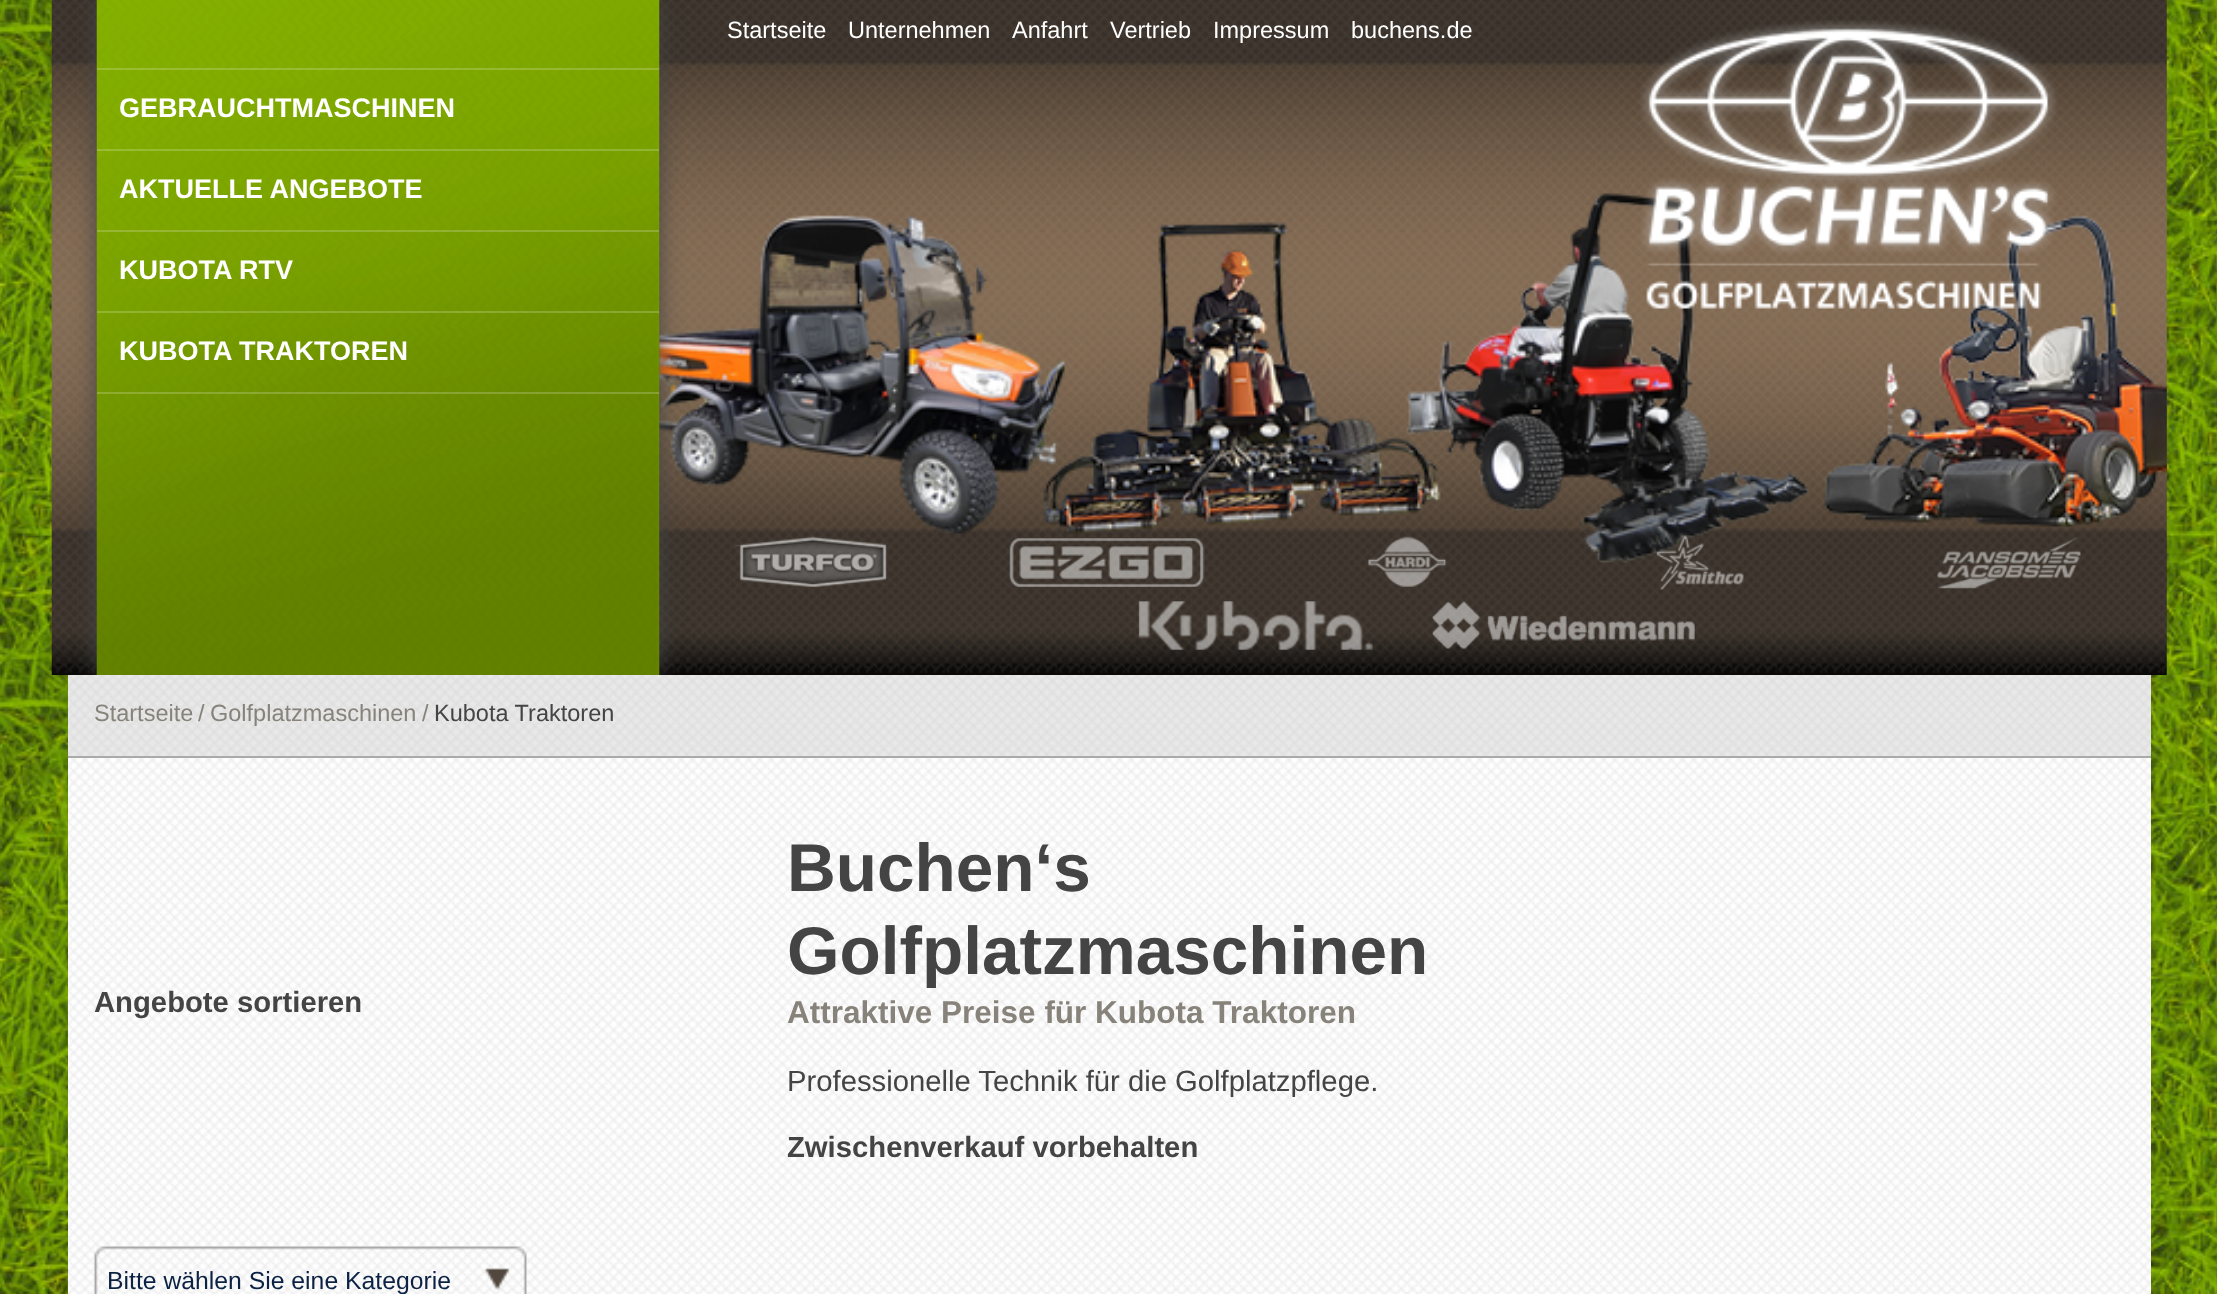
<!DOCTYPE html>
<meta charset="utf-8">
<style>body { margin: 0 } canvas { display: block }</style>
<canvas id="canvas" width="2217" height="1294"></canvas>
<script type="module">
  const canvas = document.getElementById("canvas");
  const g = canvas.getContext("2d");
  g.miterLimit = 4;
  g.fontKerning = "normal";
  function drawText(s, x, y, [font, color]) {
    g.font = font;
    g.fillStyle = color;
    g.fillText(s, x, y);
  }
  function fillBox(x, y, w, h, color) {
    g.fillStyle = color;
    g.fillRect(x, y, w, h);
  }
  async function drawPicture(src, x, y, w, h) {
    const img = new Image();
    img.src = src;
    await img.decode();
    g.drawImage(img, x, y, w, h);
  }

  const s1 = ["23.5px Liberation Sans", "#FFFFFF"];
  const s2 = ["bold 27px Liberation Sans", "#FFFFFF"];
  const s3 = ["23.5px Liberation Sans", "#87837B"];
  const s4 = ["23.5px Liberation Sans", "#444444"];
  const s5 = ["bold 29.25px Liberation Sans", "#444444"];
  const s6 = ["24.75px Liberation Sans", "#0C2245"];
  const s7 = ["bold 67.5px Liberation Sans", "#444444"];
  const s8 = ["bold 31.5px Liberation Sans", "#87837B"];
  const s9 = ["29.25px Liberation Sans", "#444444"];

  fillBox(0, 0, 2217, 1294, "#FFFFFF");
  await drawPicture("pic1.png", 0, 0, 2217, 1294);
  await drawPicture("pic2.png", 51, 0, 2116, 675);
  await drawPicture("pic3.png", 659, 20, 1508, 543);
  drawText("Startseite", 727, 38, s1);
  drawText("Unternehmen", 848, 38, s1);
  drawText("Anfahrt", 1012, 38, s1);
  drawText("Vertrieb", 1110, 38, s1);
  drawText("Impressum", 1213, 38, s1);
  drawText("buchens.de", 1351, 38, s1);
  g.fillStyle = "#444444";
  g.filter = "blur(11px)";
  g.beginPath();
  g.rect(97, 0, 562, 675);
  g.fill();
  g.filter = "none";
  await drawPicture("pic4.png", 96, 0, 564, 675);
  fillBox(97, 68, 562, 2, "rgba(255, 255, 255, 0.2)");
  drawText("GEBRAUCHTMASCHINEN", 119, 117, s2);
  fillBox(97, 149, 562, 2, "rgba(255, 255, 255, 0.2)");
  drawText("AKTUELLE ANGEBOTE", 119, 198, s2);
  fillBox(97, 230, 562, 2, "rgba(255, 255, 255, 0.2)");
  drawText("KUBOTA RTV", 119, 279, s2);
  fillBox(97, 311, 562, 2, "rgba(255, 255, 255, 0.2)");
  fillBox(97, 392, 562, 2, "rgba(255, 255, 255, 0.2)");
  drawText("KUBOTA TRAKTOREN", 119, 360, s2);
  await drawPicture("pic5.png", 735, 536, 152, 51);
  await drawPicture("pic6.png", 1009, 538, 196, 49);
  await drawPicture("pic7.png", 1368, 536, 78, 51);
  await drawPicture("pic8.png", 1656, 535, 88, 55);
  await drawPicture("pic9.png", 1937, 537, 144, 52);
  await drawPicture("pic10.png", 1138, 601, 235, 49);
  await drawPicture("pic11.png", 1432, 601, 263, 48);
  fillBox(68, 675, 2083, 619, "#FFFFFF");
  await drawPicture("pic12.png", 67, 675, 2084, 619);
  fillBox(68, 675, 2083, 81, "rgba(200, 200, 200, 0.4)");
  fillBox(68, 756, 2083, 2, "#AAAAAA");
  drawText("Startseite", 94, 721, s3);
  drawText("/", 198, 721, s3);
  drawText("Golfplatzmaschinen", 210, 721, s3);
  drawText("/", 422, 721, s3);
  drawText("Kubota Traktoren", 434, 721, s4);
  drawText("Angebote sortieren", 94, 1012, s5);
  await drawPicture("pic13.png", 94, 1246, 433, 48);
  drawText("Bitte wählen Sie eine Kategorie", 107, 1289, s6);
  drawText("Buchen‘s", 787, 891, s7);
  drawText("Golfplatzmaschinen", 787, 974, s7);
  drawText("Attraktive Preise für Kubota Traktoren", 787, 1023, s8);
  drawText("Professionelle Technik für die Golfplatzpflege.", 787, 1091, s9);
  drawText("Zwischenverkauf vorbehalten", 787, 1157, s5);
</script>
